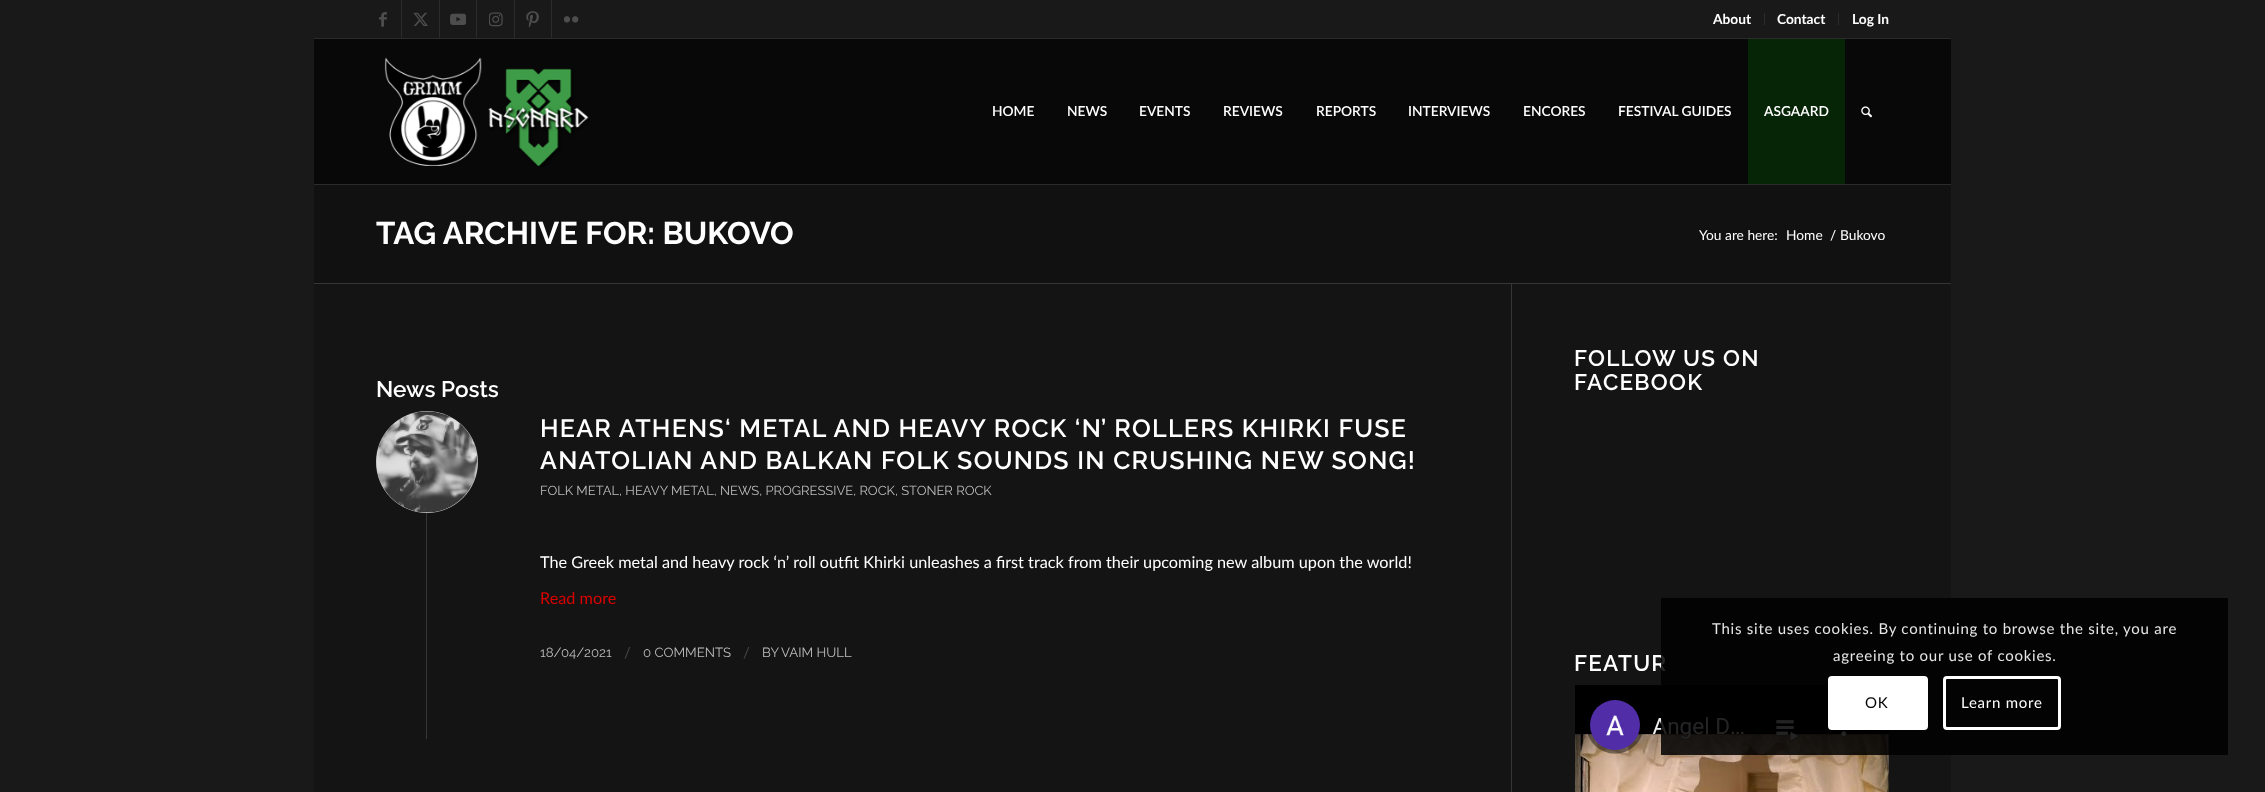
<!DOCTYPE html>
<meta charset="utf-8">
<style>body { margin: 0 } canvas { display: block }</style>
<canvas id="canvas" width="2265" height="792"></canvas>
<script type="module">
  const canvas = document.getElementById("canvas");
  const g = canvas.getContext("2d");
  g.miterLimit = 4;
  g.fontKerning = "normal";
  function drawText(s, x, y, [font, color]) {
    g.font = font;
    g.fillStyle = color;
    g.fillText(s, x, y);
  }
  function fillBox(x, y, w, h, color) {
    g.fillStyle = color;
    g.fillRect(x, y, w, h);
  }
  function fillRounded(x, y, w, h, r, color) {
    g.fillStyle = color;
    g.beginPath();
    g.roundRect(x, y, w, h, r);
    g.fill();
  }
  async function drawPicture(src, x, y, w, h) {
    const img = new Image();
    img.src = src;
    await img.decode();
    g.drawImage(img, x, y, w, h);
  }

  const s1 = ["bold 13.75px Lato", "#FFFFFF"];
  const s2 = ["600 13.75px Lato", "#FFFFFF"];
  const s3 = ["bold 31.25px Raleway", "#FFFFFF"];
  const s4 = ["13.75px Lato", "#FFFFFF"];
  const s5 = ["600 22.5px Raleway", "#FFFFFF"];
  const s6 = ["600 25px Raleway", "#FFFFFF"];
  const s7 = ["13px Raleway", "#BDBDBD"];
  const s8 = ["16.25px Lato", "#FFFFFF"];
  const s9 = ["16.25px Lato", "#DB0000"];
  const s10 = ["13.25px Raleway", "#BDBDBD"];
  const s11 = ["15px Lato", "#474747"];
  const s12 = ["15px Lato", "#E6E6E6"];
  const s13 = ["15px Lato", "#000000"];
  const s14 = ["15px Lato", "#FFFFFF"];

  fillBox(0, 0, 2265, 792, "#191919");
  fillBox(314, 38, 1637, 1, "#2B2B2B");
  fillBox(401, 0, 1, 38, "#2B2B2B");
  await drawPicture("pic1.png", 379, 12, 8, 15);
  fillBox(439, 0, 1, 38, "#2B2B2B");
  await drawPicture("pic2.png", 413, 12, 15, 14);
  fillBox(476, 0, 1, 38, "#2B2B2B");
  await drawPicture("pic3.png", 450, 13, 16, 12);
  fillBox(514, 0, 1, 38, "#2B2B2B");
  await drawPicture("pic4.png", 489, 12, 14, 15);
  fillBox(551, 0, 1, 38, "#2B2B2B");
  await drawPicture("pic5.png", 526, 11, 13, 17);
  await drawPicture("pic6.png", 564, 16, 15, 7);
  fillBox(1764, 13, 1, 12, "#2B2B2B");
  drawText("About", 1713, 24, s1);
  fillBox(1838, 13, 1, 12, "#2B2B2B");
  drawText("Contact", 1777, 24, s1);
  drawText("Log In", 1852, 24, s1);
  fillBox(314, 184, 1637, 1, "#2B2B2B");
  fillBox(314, 39, 1637, 145, "#080808");
  await drawPicture("pic7.png", 384, 57, 205, 110);
  drawText("HOME", 992, 116, s2);
  drawText("NEWS", 1067, 116, s2);
  drawText("EVENTS", 1139, 116, s2);
  drawText("REVIEWS", 1223, 116, s2);
  drawText("REPORTS", 1316, 116, s2);
  drawText("INTERVIEWS", 1408, 116, s2);
  drawText("ENCORES", 1523, 116, s2);
  drawText("FESTIVAL GUIDES", 1618, 116, s2);
  fillBox(1748, 39, 97, 145, "#062406");
  drawText("ASGAARD", 1764, 116, s2);
  await drawPicture("pic8.png", 1861, 106, 11, 12);
  fillBox(314, 185, 1637, 98, "#111111");
  drawText("TAG ARCHIVE FOR: BUKOVO", 376, 244, s3);
  drawText("You are here:", 1699, 240, s4);
  drawText("Home", 1786, 240, s4);
  drawText("/", 1830, 240, s4);
  drawText("Bukovo", 1840, 240, s4);
  fillBox(314, 284, 1637, 508, "#141414");
  fillBox(314, 283, 1637, 1, "#363636");
  fillBox(1511, 284, 1, 508, "#363636");
  drawText("News Posts", 376, 397, s5);
  fillBox(426, 411, 1, 328, "#363636");
  g.fillStyle = "#BDBDBD";
  g.beginPath();
  g.arc(427, 462, 51, 0, Math.PI * 2);
  g.fill();
  await drawPicture("pic9.png", 376, 411, 102, 102);
  g.letterSpacing = "1.25px";
  drawText("HEAR ATHENS‘ METAL AND HEAVY ROCK ‘N’ ROLLERS KHIRKI FUSE", 540, 437, s6);
  drawText("ANATOLIAN AND BALKAN FOLK SOUNDS IN CRUSHING NEW SONG!", 540, 469, s6);
  g.letterSpacing = "0px";
  drawText("FOLK METAL, HEAVY METAL, NEWS, PROGRESSIVE, ROCK, STONER ROCK", 540, 495, s7);
  drawText("The Greek metal and heavy rock ‘n’ roll outfit Khirki unleashes a first track from their upcoming new album upon the world!", 540, 568, s8);
  drawText("Read more", 540, 604, s9);
  drawText("18/04/2021", 540, 657, s10);
  drawText("/", 624, 658, s11);
  drawText("0 COMMENTS", 643, 657, s10);
  drawText("/", 743, 658, s11);
  drawText("BY", 762, 657, s10);
  drawText("VAIM HULL", 781, 657, s10);
  g.letterSpacing = "1.25px";
  drawText("FOLLOW US ON", 1574, 366, s5);
  drawText("FACEBOOK", 1574, 390, s5);
  drawText("FEATUR", 1574, 671, s5);
  await drawPicture("pic10.png", 1575, 685, 314, 107);
  fillBox(1661, 598, 567, 157, "rgba(0, 0, 0, 0.85)");
  g.letterSpacing = "0.75px";
  drawText("This site uses cookies. By continuing to browse the site, you are", 1712, 634, s12);
  drawText("agreeing to our use of cookies.", 1833, 661, s12);
  fillRounded(1828, 676, 100, 54, 4, "#FFFFFF");
  drawText("OK", 1865, 708, s13);
  g.beginPath();
  g.roundRect(1944.5, 677.5, 115, 51, 2.5);
  g.strokeStyle = "#FFFFFF";
  g.lineWidth = 3;
  g.stroke();
  drawText("Learn more", 1961, 708, s14);
</script>
